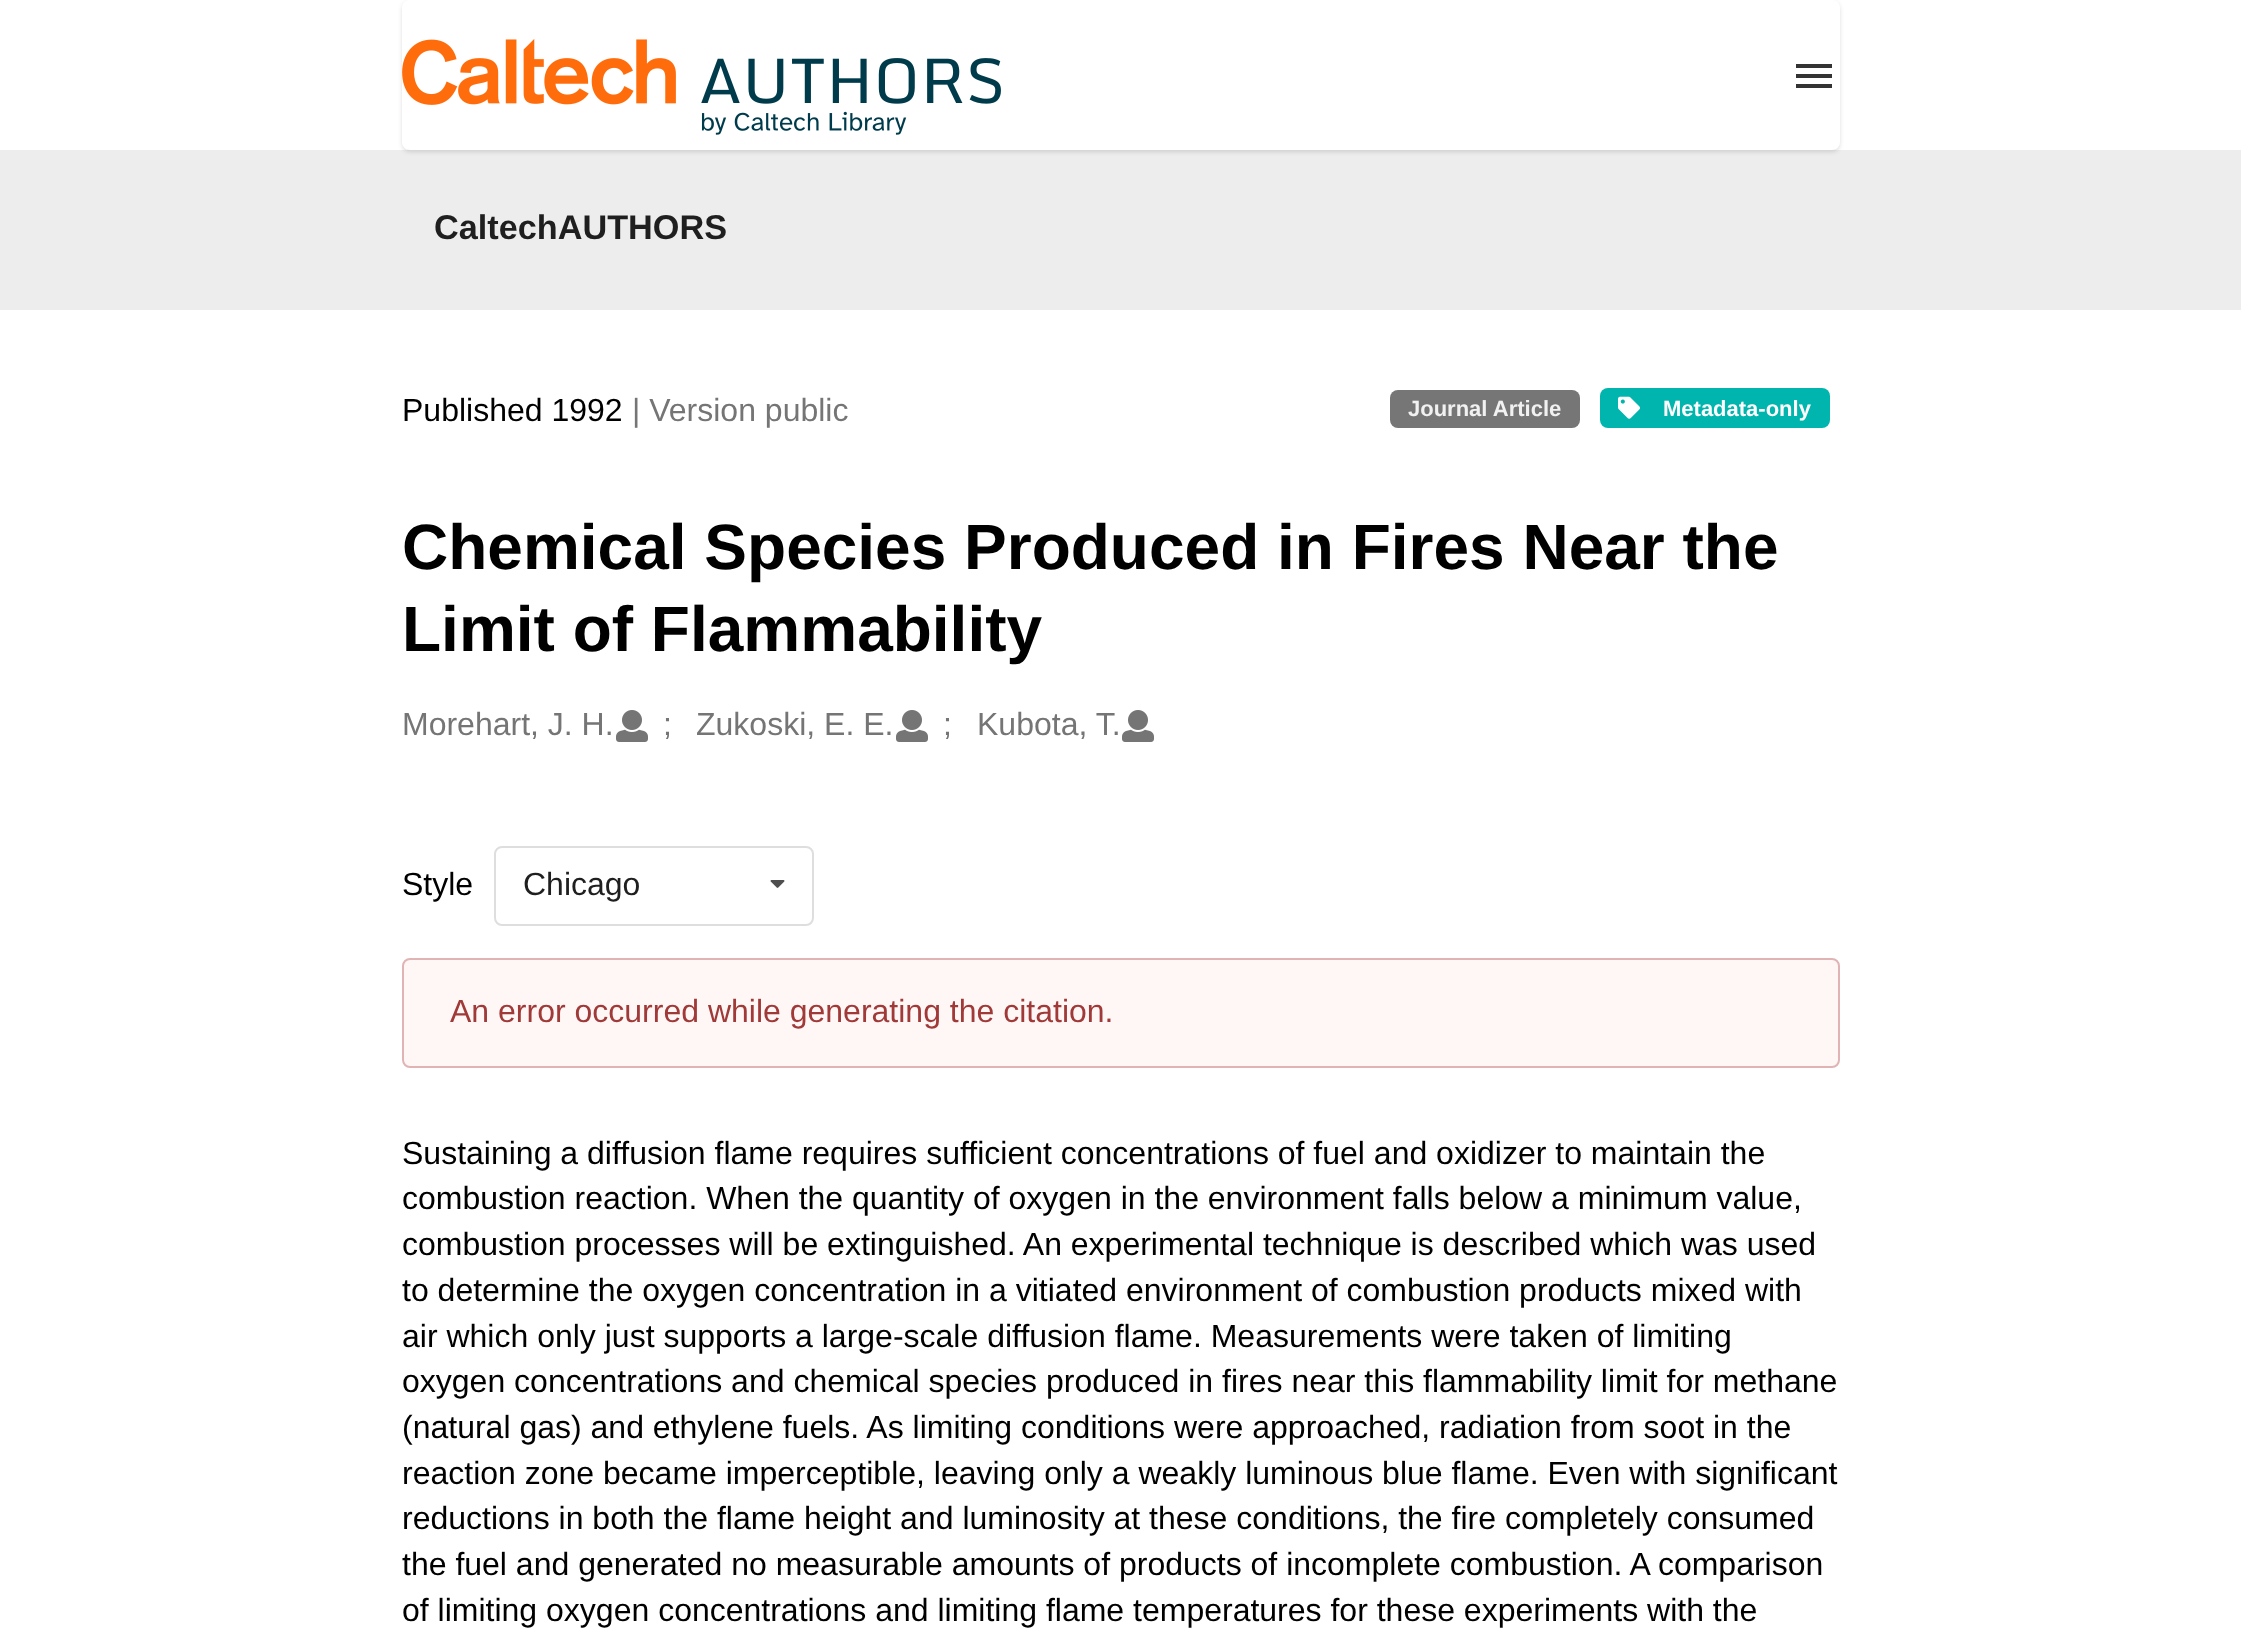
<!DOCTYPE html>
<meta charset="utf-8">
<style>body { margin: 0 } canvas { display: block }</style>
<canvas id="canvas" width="2241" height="1649"></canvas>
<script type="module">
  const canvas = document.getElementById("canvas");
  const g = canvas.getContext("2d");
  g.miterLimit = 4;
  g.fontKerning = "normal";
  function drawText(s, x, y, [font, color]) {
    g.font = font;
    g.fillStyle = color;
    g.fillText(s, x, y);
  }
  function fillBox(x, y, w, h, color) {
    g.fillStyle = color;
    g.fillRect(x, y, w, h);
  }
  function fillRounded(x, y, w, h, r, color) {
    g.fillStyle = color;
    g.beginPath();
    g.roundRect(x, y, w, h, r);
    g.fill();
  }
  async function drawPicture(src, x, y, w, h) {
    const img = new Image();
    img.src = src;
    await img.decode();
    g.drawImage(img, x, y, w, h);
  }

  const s1 = ["bold 34.25px Liberation Sans", "#1F1F1F"];
  const s2 = ["32px Liberation Sans", "#000000"];
  const s3 = ["32px Liberation Sans", "#757575"];
  const s4 = ["bold 22px Liberation Sans", "#F1F1F1"];
  const s5 = ["bold 22px Liberation Sans", "#FFFFFF"];
  const s6 = ["bold 64px Liberation Sans", "#000000"];
  const s7 = ["32px Liberation Sans", "#1F1F1F"];
  const s8 = ["32px Liberation Sans", "#9F3A38"];

  fillBox(0, 0, 2241, 1649, "#FFFFFF");
  fillBox(0, 150, 2241, 160, "#EDEDED");
  g.save();
  g.beginPath();
  g.moveTo(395, 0);
  g.lineTo(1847, 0);
  g.lineTo(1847, 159);
  g.lineTo(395, 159);
  g.closePath();
  g.moveTo(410, 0);
  g.lineTo(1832, 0);
  g.bezierCurveTo(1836.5, 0, 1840, 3.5, 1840, 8);
  g.lineTo(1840, 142);
  g.bezierCurveTo(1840, 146.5, 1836.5, 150, 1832, 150);
  g.lineTo(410, 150);
  g.bezierCurveTo(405.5, 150, 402, 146.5, 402, 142);
  g.lineTo(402, 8);
  g.bezierCurveTo(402, 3.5, 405.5, 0, 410, 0);
  g.closePath();
  g.clip("evenodd");
  g.fillStyle = "rgba(34, 36, 38, 0.15)";
  g.filter = "blur(2px)";
  g.beginPath();
  g.roundRect(402, 2, 1438, 150, 8);
  g.fill();
  g.filter = "none";
  g.restore();
  await drawPicture("pic1.png", 402, 39, 599, 96);
  fillBox(1796, 74, 36, 4, "#333333");
  fillBox(1796, 64, 36, 4, "#333333");
  fillBox(1796, 84, 36, 4, "#333333");
  drawText("CaltechAUTHORS", 434, 239, s1);
  drawText("Published 1992", 402, 421, s2);
  drawText("| Version public", 632, 421, s3);
  fillRounded(1390, 390, 190, 38, 8, "#767676");
  drawText("Journal Article", 1408, 416, s4);
  fillRounded(1600, 388, 230, 40, 8, "#00B5AD");
  await drawPicture("pic2.png", 1618, 396, 22, 23);
  drawText("Metadata-only", 1663, 416, s5);
  drawText("Chemical Species Produced in Fires Near the", 402, 569, s6);
  drawText("Limit of Flammability", 402, 651, s6);
  drawText("Morehart, J. H.", 402, 735, s3);
  await drawPicture("pic3.png", 616, 710, 32, 32);
  drawText(";", 663, 735, s3);
  drawText("Zukoski, E. E.", 696, 735, s3);
  await drawPicture("pic3.png", 896, 710, 32, 32);
  drawText(";", 943, 735, s3);
  drawText("Kubota, T.", 977, 735, s3);
  await drawPicture("pic3.png", 1122, 710, 32, 32);
  drawText("Style", 402, 895, s2);
  g.beginPath();
  g.roundRect(495, 847, 318, 78, 7);
  g.strokeStyle = "#DEDEDE";
  g.lineWidth = 2;
  g.stroke();
  drawText("Chicago", 523, 895, s7);
  await drawPicture("pic4.png", 770, 880, 15, 8);
  g.fillStyle = "#FFF6F6";
  g.beginPath();
  g.roundRect(403, 959, 1436, 108, 7);
  g.fill();
  g.strokeStyle = "#E0B4B4";
  g.stroke();
  drawText("An error occurred while generating the citation.", 450, 1022, s8);
  drawText("Sustaining a diffusion flame requires sufficient concentrations of fuel and oxidizer to maintain the", 402, 1164, s2);
  drawText("combustion reaction. When the quantity of oxygen in the environment falls below a minimum value,", 402, 1209, s2);
  drawText("combustion processes will be extinguished. An experimental technique is described which was used", 402, 1255, s2);
  drawText("to determine the oxygen concentration in a vitiated environment of combustion products mixed with", 402, 1301, s2);
  drawText("air which only just supports a large-scale diffusion flame. Measurements were taken of limiting", 402, 1347, s2);
  drawText("oxygen concentrations and chemical species produced in fires near this flammability limit for methane", 402, 1392, s2);
  drawText("(natural gas) and ethylene fuels. As limiting conditions were approached, radiation from soot in the", 402, 1438, s2);
  drawText("reaction zone became imperceptible, leaving only a weakly luminous blue flame. Even with significant", 402, 1484, s2);
  drawText("reductions in both the flame height and luminosity at these conditions, the fire completely consumed", 402, 1529, s2);
  drawText("the fuel and generated no measurable amounts of products of incomplete combustion. A comparison", 402, 1575, s2);
  drawText("of limiting oxygen concentrations and limiting flame temperatures for these experiments with the", 402, 1621, s2);
</script>
